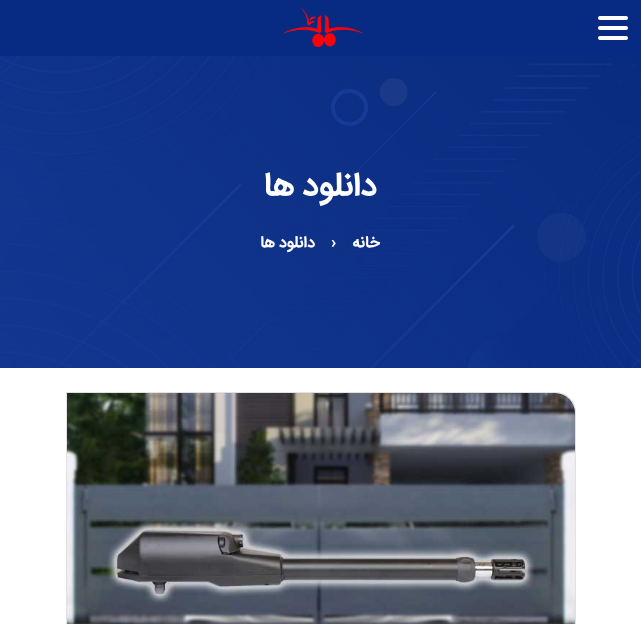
<!DOCTYPE html>
<meta charset="utf-8">
<style>body { margin: 0 } canvas { display: block }</style>
<canvas id="canvas" width="641" height="624"></canvas>
<script type="module">
  const canvas = document.getElementById("canvas");
  const g = canvas.getContext("2d");
  g.miterLimit = 4;
  g.fontKerning = "normal";
  function drawText(s, x, y, [font, color]) {
    g.font = font;
    g.fillStyle = color;
    g.fillText(s, x, y);
  }
  function fillBox(x, y, w, h, color) {
    g.fillStyle = color;
    g.fillRect(x, y, w, h);
  }
  function fillRounded(x, y, w, h, r, color) {
    g.fillStyle = color;
    g.beginPath();
    g.roundRect(x, y, w, h, r);
    g.fill();
  }
  async function drawPicture(src, x, y, w, h) {
    const img = new Image();
    img.src = src;
    await img.decode();
    g.drawImage(img, x, y, w, h);
  }

  const s1 = ["bold 16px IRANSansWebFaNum", "#FFFFFF"];
  const s2 = ["bold 33px IRANSansWebFaNum", "#FFFFFF"];

  fillBox(0, 0, 641, 624, "#FFFFFF");
  fillBox(0, 0, 641, 56, "#072B83");
  fillRounded(598, 26, 30, 4, 2, "#FFFFFF");
  fillRounded(598, 16, 30, 4, 2, "#FFFFFF");
  fillRounded(598, 36, 30, 4, 2, "#FFFFFF");
  await drawPicture("pic1.png", 283, 8, 80, 40);
  await drawPicture("pic2.png", 0, 56, 641, 312);
  g.direction = "rtl";
  drawText("خانه", 380, 247, s1);
  await drawPicture("pic3.png", 379, 78, 207, 184);
  drawText("دانلود ها", 377, 195, s2);
  g.direction = "ltr";
  drawText("›", 331, 247, s1);
  g.direction = "rtl";
  drawText("دانلود ها", 315, 247, s1);
  g.beginPath();
  g.moveTo(66.5, 392.5);
  g.lineTo(556, 392.5);
  g.bezierCurveTo(567, 392.5, 575.5, 401, 575.5, 412);
  g.lineTo(575.5, 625);
  g.bezierCurveTo(575.5, 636, 567, 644.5, 556, 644.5);
  g.lineTo(66.5, 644.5);
  g.closePath();
  g.strokeStyle = "#E1E1E1";
  g.stroke();
  await drawPicture("pic4.png", 67, 393, 508, 231);
</script>
